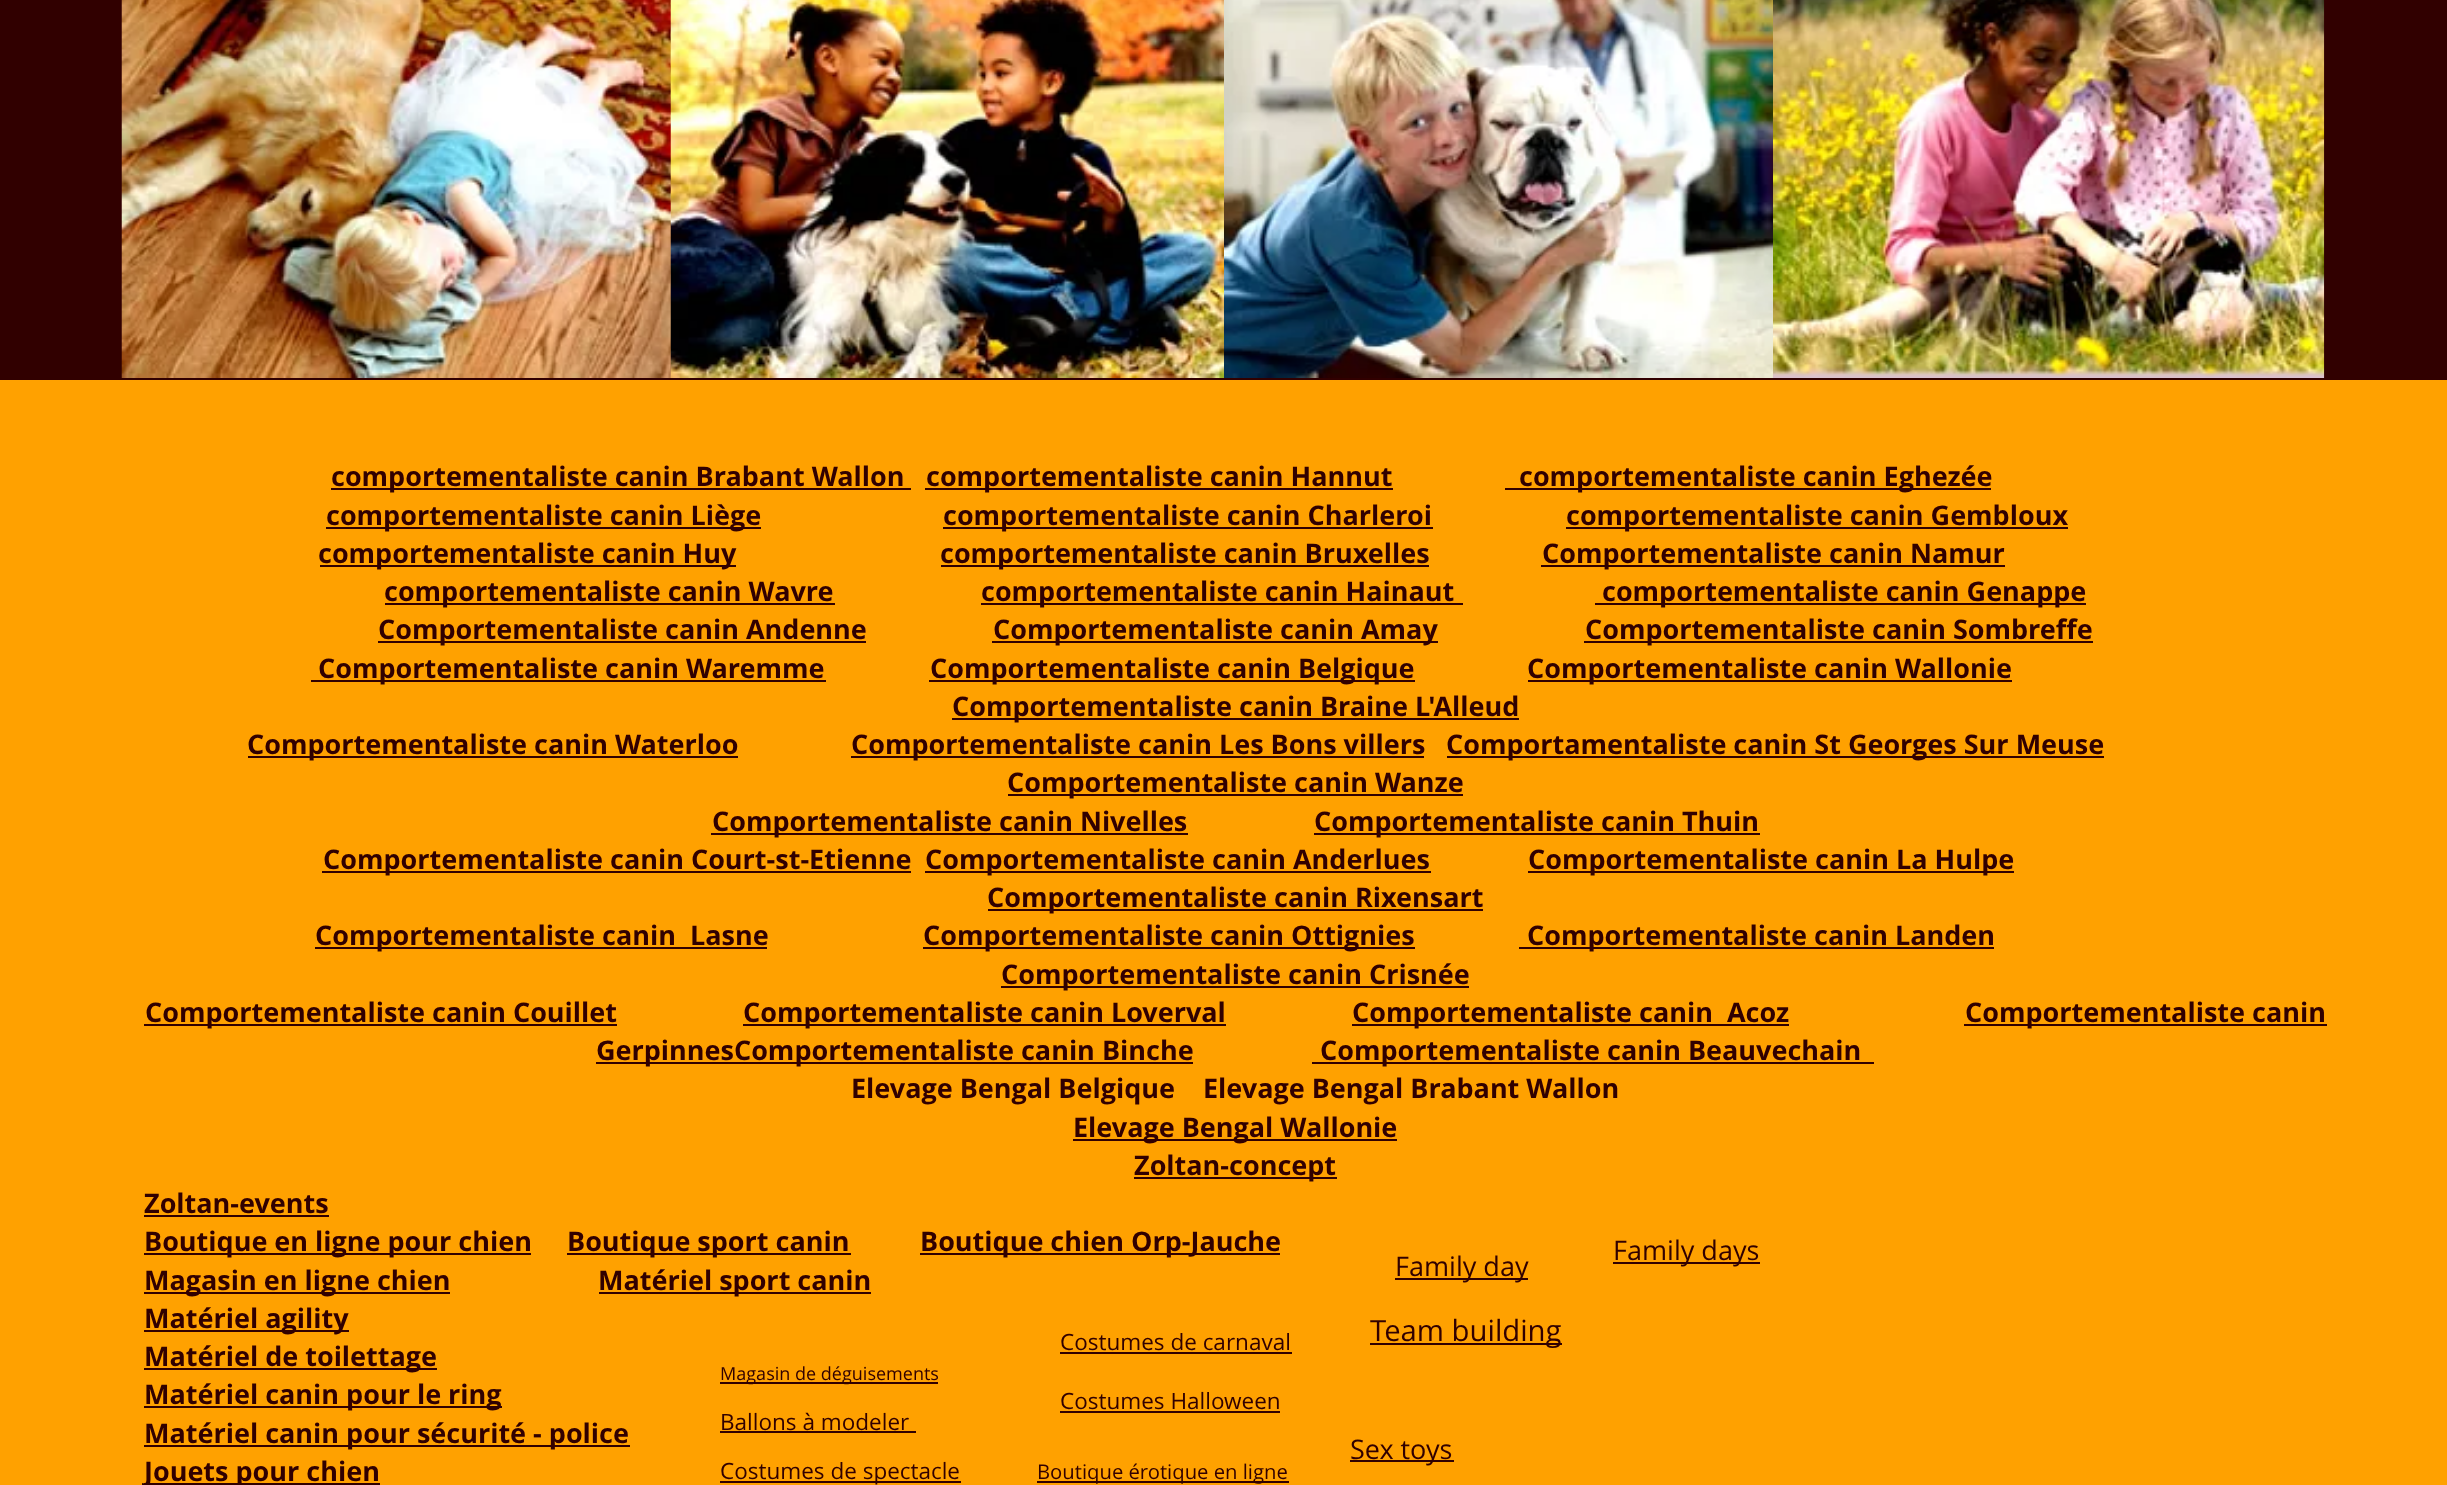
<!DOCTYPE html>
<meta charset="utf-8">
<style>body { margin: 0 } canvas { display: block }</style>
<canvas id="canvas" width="2447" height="1485"></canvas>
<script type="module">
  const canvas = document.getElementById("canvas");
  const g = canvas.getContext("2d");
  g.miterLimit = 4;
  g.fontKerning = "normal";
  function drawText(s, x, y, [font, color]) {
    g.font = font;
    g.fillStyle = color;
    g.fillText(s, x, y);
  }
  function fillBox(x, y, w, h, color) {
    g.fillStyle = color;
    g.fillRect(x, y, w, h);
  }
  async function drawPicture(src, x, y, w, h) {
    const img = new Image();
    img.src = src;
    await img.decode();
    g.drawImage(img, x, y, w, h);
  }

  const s1 = ["bold 27px Open Sans", "#310000"];
  const s2 = ["27px Open Sans", "#310000"];
  const s3 = ["22.5px Open Sans", "#310000"];
  const s4 = ["29.25px Open Sans", "#310000"];
  const s5 = ["18px Open Sans", "#310000"];
  const s6 = ["20.25px Open Sans", "#310000"];

  fillBox(0, 0, 2447, 1485, "#FFA100");
  fillBox(0, 0, 2447, 380, "#310000");
  await drawPicture("pic1.png", 121, 0, 550, 378);
  await drawPicture("pic2.png", 670, 0, 554, 378);
  await drawPicture("pic3.png", 1224, 0, 549, 378);
  await drawPicture("pic4.png", 1773, 0, 552, 378);
  fillBox(331, 488, 580, 2, "#310000");
  drawText("comportementaliste canin Brabant Wallon", 331, 486, s1);
  fillBox(925, 488, 468, 2, "#310000");
  drawText("comportementaliste canin Hannut", 926, 486, s1);
  fillBox(1505, 488, 486, 2, "#310000");
  drawText("comportementaliste canin Eghezée", 1519, 486, s1);
  fillBox(326, 527, 435, 2, "#310000");
  drawText("comportementaliste canin Liège", 326, 525, s1);
  fillBox(943, 527, 490, 2, "#310000");
  drawText("comportementaliste canin Charleroi", 943, 525, s1);
  fillBox(1566, 527, 502, 2, "#310000");
  drawText("comportementaliste canin Gembloux", 1566, 525, s1);
  fillBox(320, 565, 416, 2, "#310000");
  drawText("comportementaliste canin Huy", 318, 563, s1);
  fillBox(941, 565, 488, 2, "#310000");
  drawText("comportementaliste canin Bruxelles", 940, 563, s1);
  fillBox(1541, 565, 464, 2, "#310000");
  drawText("Comportementaliste canin Namur", 1542, 563, s1);
  fillBox(385, 603, 450, 2, "#310000");
  drawText("comportementaliste canin Wavre", 384, 601, s1);
  fillBox(981, 603, 482, 2, "#310000");
  drawText("comportementaliste canin Hainaut", 981, 601, s1);
  fillBox(1595, 603, 491, 2, "#310000");
  drawText("comportementaliste canin Genappe", 1602, 601, s1);
  fillBox(378, 641, 488, 2, "#310000");
  drawText("Comportementaliste canin Andenne", 378, 639, s1);
  fillBox(992, 641, 446, 2, "#310000");
  drawText("Comportementaliste canin Amay", 993, 639, s1);
  fillBox(1584, 641, 509, 2, "#310000");
  drawText("Comportementaliste canin Sombreffe", 1585, 639, s1);
  fillBox(311, 680, 515, 2, "#310000");
  drawText("Comportementaliste canin Waremme", 318, 678, s1);
  fillBox(929, 680, 486, 2, "#310000");
  drawText("Comportementaliste canin Belgique", 930, 678, s1);
  fillBox(1528, 680, 484, 2, "#310000");
  drawText("Comportementaliste canin Wallonie", 1527, 678, s1);
  fillBox(952, 718, 567, 2, "#310000");
  drawText("Comportementaliste canin Braine L'Alleud", 952, 716, s1);
  fillBox(248, 756, 490, 2, "#310000");
  drawText("Comportementaliste canin Waterloo", 247, 754, s1);
  fillBox(851, 756, 573, 2, "#310000");
  drawText("Comportementaliste canin Les Bons villers", 851, 754, s1);
  fillBox(1447, 756, 657, 2, "#310000");
  drawText("Comportamentaliste canin St Georges Sur Meuse", 1446, 754, s1);
  fillBox(1008, 794, 455, 2, "#310000");
  drawText("Comportementaliste canin Wanze", 1007, 792, s1);
  fillBox(711, 833, 477, 2, "#310000");
  drawText("Comportementaliste canin Nivelles", 712, 831, s1);
  fillBox(1314, 833, 446, 2, "#310000");
  drawText("Comportementaliste canin Thuin", 1314, 831, s1);
  fillBox(322, 871, 589, 2, "#310000");
  drawText("Comportementaliste canin Court-st-Etienne", 323, 869, s1);
  fillBox(925, 871, 506, 2, "#310000");
  drawText("Comportementaliste canin Anderlues", 925, 869, s1);
  fillBox(1528, 871, 486, 2, "#310000");
  drawText("Comportementaliste canin La Hulpe", 1528, 869, s1);
  fillBox(988, 909, 495, 2, "#310000");
  drawText("Comportementaliste canin Rixensart", 987, 907, s1);
  fillBox(315, 947, 452, 2, "#310000");
  drawText("Comportementaliste canin  Lasne", 315, 945, s1);
  fillBox(923, 947, 492, 2, "#310000");
  drawText("Comportementaliste canin Ottignies", 923, 945, s1);
  fillBox(1519, 947, 475, 2, "#310000");
  drawText("Comportementaliste canin Landen", 1527, 945, s1);
  fillBox(1001, 986, 468, 2, "#310000");
  drawText("Comportementaliste canin Crisnée", 1001, 984, s1);
  fillBox(144, 1024, 473, 2, "#310000");
  drawText("Comportementaliste canin Couillet", 145, 1022, s1);
  fillBox(743, 1024, 483, 2, "#310000");
  drawText("Comportementaliste canin Loverval", 743, 1022, s1);
  fillBox(1352, 1024, 437, 2, "#310000");
  drawText("Comportementaliste canin  Acoz", 1352, 1022, s1);
  fillBox(1964, 1024, 363, 2, "#310000");
  drawText("Comportementaliste canin", 1965, 1022, s1);
  fillBox(596, 1062, 597, 2, "#310000");
  drawText("GerpinnesComportementaliste canin Binche", 596, 1060, s1);
  fillBox(1312, 1062, 562, 2, "#310000");
  drawText("Comportementaliste canin Beauvechain", 1320, 1060, s1);
  drawText("Elevage Bengal Belgique", 851, 1098, s1);
  drawText("Elevage Bengal Brabant Wallon", 1203, 1098, s1);
  fillBox(1073, 1139, 324, 2, "#310000");
  drawText("Elevage Bengal Wallonie", 1073, 1137, s1);
  fillBox(1134, 1177, 203, 2, "#310000");
  drawText("Zoltan-concept", 1134, 1175, s1);
  drawText("Zoltan-events", 144, 1213, s1);
  fillBox(144, 1215, 185, 2, "#310000");
  fillBox(144, 1253, 387, 2, "#310000");
  drawText("Boutique en ligne pour chien", 144, 1251, s1);
  fillBox(567, 1253, 284, 2, "#310000");
  drawText("Boutique sport canin", 567, 1251, s1);
  fillBox(920, 1253, 360, 2, "#310000");
  drawText("Boutique chien Orp-Jauche", 920, 1251, s1);
  fillBox(144, 1292, 306, 2, "#310000");
  drawText("Magasin en ligne chien", 144, 1290, s1);
  fillBox(599, 1292, 272, 2, "#310000");
  drawText("Matériel sport canin", 598, 1290, s1);
  fillBox(144, 1330, 205, 2, "#310000");
  drawText("Matériel agility", 144, 1328, s1);
  fillBox(144, 1368, 293, 2, "#310000");
  drawText("Matériel de toilettage", 144, 1366, s1);
  fillBox(144, 1406, 358, 2, "#310000");
  drawText("Matériel canin pour le ring", 144, 1404, s1);
  fillBox(144, 1445, 486, 2, "#310000");
  drawText("Matériel canin pour sécurité - police", 144, 1443, s1);
  fillBox(144, 1483, 236, 2, "#310000");
  drawText("Jouets pour chien", 144, 1481, s1);
  fillBox(1395, 1278, 133, 2, "#310000");
  drawText("Family day", 1395, 1276, s2);
  fillBox(1613, 1262, 147, 2, "#310000");
  drawText("Family days", 1613, 1260, s2);
  drawText("Costumes de carnaval", 1060, 1350, s3);
  fillBox(1060, 1352, 232, 2, "#310000");
  fillBox(1370, 1343, 192, 2, "#310000");
  drawText("Team building", 1370, 1341, s4);
  fillBox(720, 1382, 218, 2, "#310000");
  drawText("Magasin de déguisements", 720, 1380, s5);
  drawText("Costumes Halloween", 1060, 1409, s3);
  fillBox(1060, 1411, 220, 2, "#310000");
  drawText("Ballons à modeler", 720, 1430, s3);
  fillBox(720, 1431, 196, 2, "#310000");
  fillBox(1350, 1460, 104, 2, "#310000");
  drawText("Sex toys", 1350, 1459, s2);
  fillBox(720, 1481, 241, 2, "#310000");
  drawText("Costumes de spectacle", 720, 1479, s3);
  fillBox(1037, 1481, 252, 2, "#310000");
  drawText("Boutique érotique en ligne", 1037, 1479, s6);
</script>
